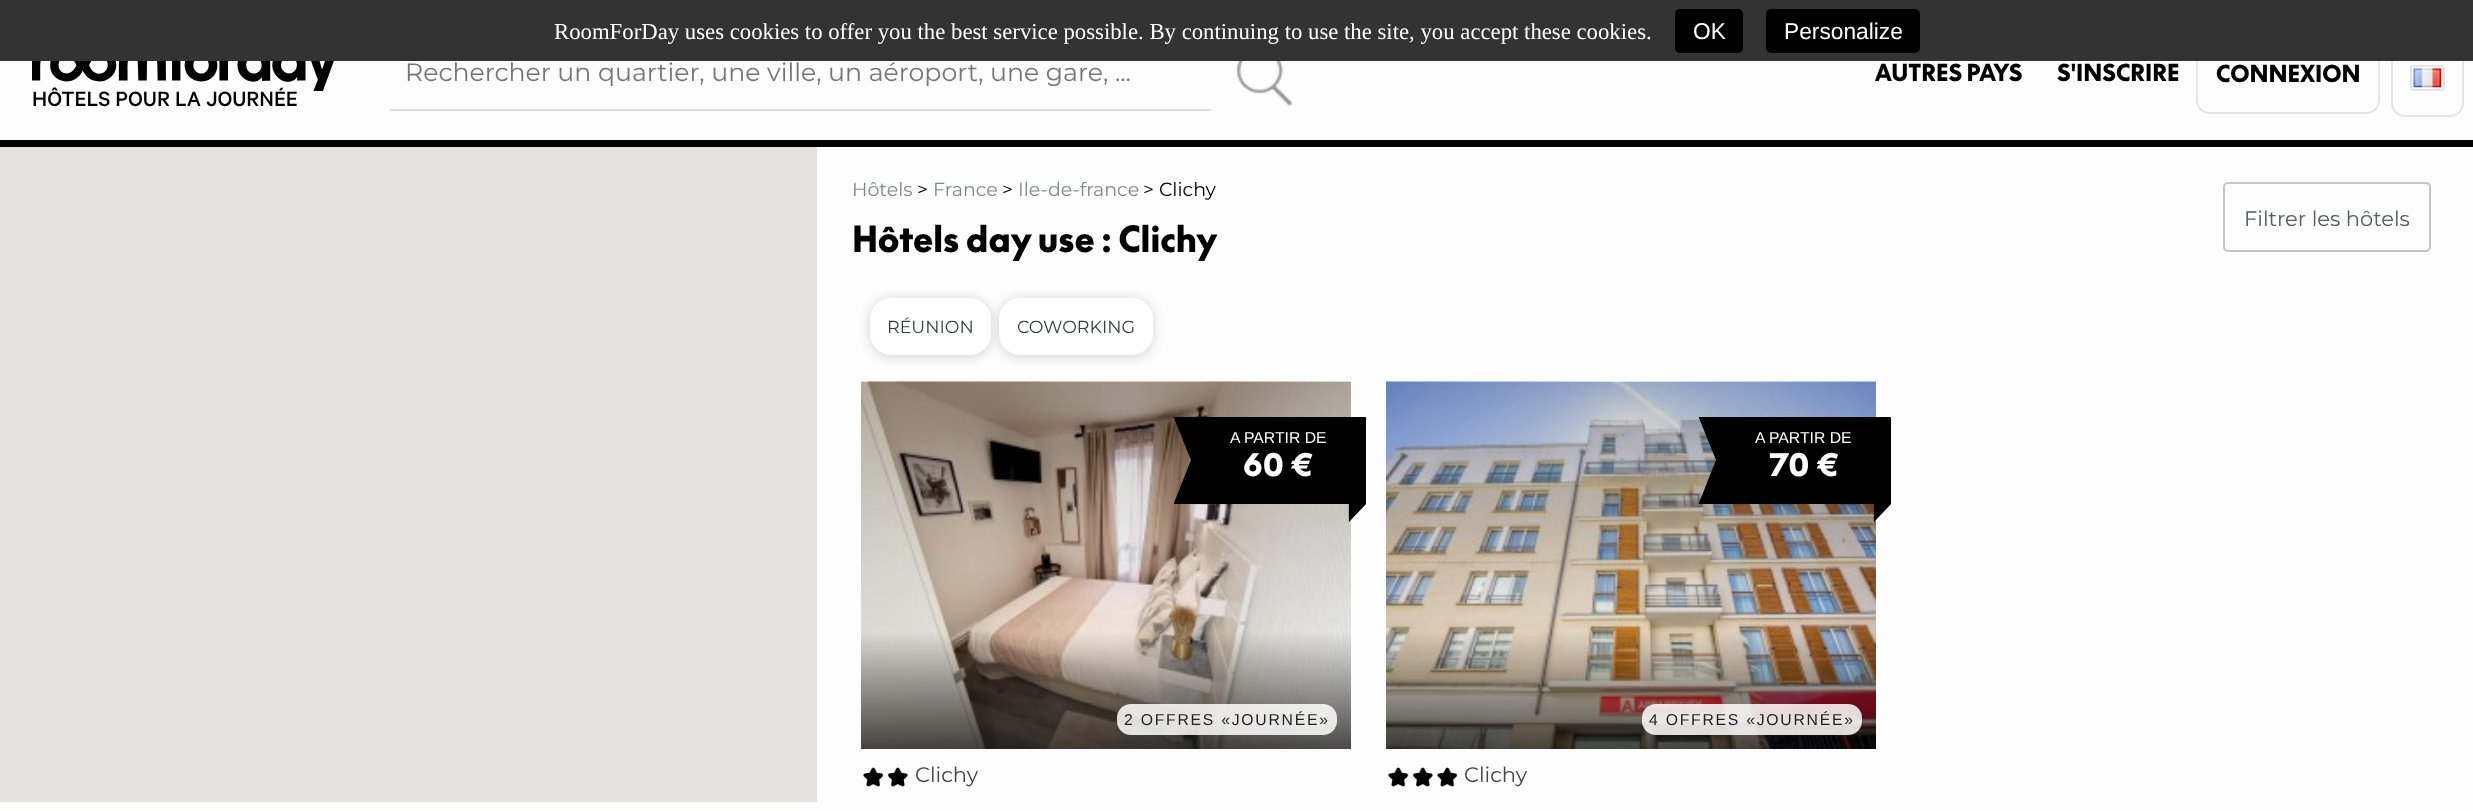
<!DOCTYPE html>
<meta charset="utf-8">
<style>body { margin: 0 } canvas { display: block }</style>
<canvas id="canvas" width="2473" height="811"></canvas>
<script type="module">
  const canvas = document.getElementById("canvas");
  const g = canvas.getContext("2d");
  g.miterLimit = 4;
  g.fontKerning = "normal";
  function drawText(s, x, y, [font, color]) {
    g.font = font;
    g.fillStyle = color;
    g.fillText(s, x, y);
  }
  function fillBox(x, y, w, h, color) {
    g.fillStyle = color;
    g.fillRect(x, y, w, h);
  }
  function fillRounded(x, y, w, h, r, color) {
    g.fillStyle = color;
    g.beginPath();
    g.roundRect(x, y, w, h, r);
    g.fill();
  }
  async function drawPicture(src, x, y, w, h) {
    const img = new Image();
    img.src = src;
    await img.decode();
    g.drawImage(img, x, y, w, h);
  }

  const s1 = ["22.75px Liberation Serif", "#FFFFFF"];
  const s2 = ["22.75px Liberation Sans", "#FFFFFF"];
  const s3 = ["25.2px Montserrat", "#757575"];
  const s4 = ["900 22.75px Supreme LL", "#000000"];
  const s5 = ["500 23.25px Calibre", "#000000"];
  const s6 = ["19px Montserrat", "#82888A"];
  const s7 = ["19px Montserrat", "#000000"];
  const s8 = ["900 35px Supreme LL", "#000000"];
  const s9 = ["21px Montserrat", "#565A5C"];
  const s10 = ["17.5px Montserrat", "#393C3D"];
  const s11 = ["15.75px Liberation Sans", "#FFFFFF"];
  const s12 = ["900 31.5px Supreme LL", "#FFFFFF"];
  const s13 = ["15.75px Liberation Sans", "#222222"];
  const s14 = ["21px Montserrat", "#444444"];

  fillBox(0, 0, 2473, 811, "#FDFDFD");
  g.beginPath();
  g.roundRect(2197, 36, 182, 77, 13);
  g.strokeStyle = "#E6E5E5";
  g.lineWidth = 2;
  g.stroke();
  g.beginPath();
  g.roundRect(2392, 36, 71, 80, 13);
  g.stroke();
  fillBox(0, 0, 2473, 61, "#333333");
  drawText("RoomForDay uses cookies to offer you the best service possible. By continuing to use the site, you accept these cookies.", 554, 39, s1);
  fillRounded(1675, 9, 68, 44, 5, "#000000");
  drawText("OK", 1693, 39, s2);
  fillRounded(1766, 9, 154, 44, 5, "#000000");
  drawText("Personalize", 1784, 39, s2);
  fillBox(390, 109, 821, 2, "#DDDDDD");
  drawText("Rechercher un quartier, une ville, un aéroport, une gare, ...", 405, 81, s3);
  await drawPicture("pic1.png", 1236, 61, 56, 45);
  drawText("AUTRES PAYS", 1875, 81, s4);
  drawText("S'INSCRIRE", 2057, 81, s4);
  drawText("CONNEXION", 2216, 82, s4);
  g.beginPath();
  g.roundRect(2411, 66, 33, 24, 3);
  g.strokeStyle = "#E4E4E4";
  g.stroke();
  await drawPicture("pic2.png", 2413, 68, 29, 20);
  await drawPicture("pic3.png", 32, 61, 302, 30);
  drawText("HÔTELS POUR LA JOURNÉE", 32, 106, s5);
  fillBox(0, 140, 2473, 7, "#000000");
  fillBox(0, 147, 817, 655, "#E5E3DF");
  drawText("Hôtels", 852, 196, s6);
  drawText(">", 917, 196, s7);
  drawText("France", 933, 196, s6);
  drawText(">", 1002, 196, s7);
  drawText("Ile-de-france", 1018, 196, s6);
  drawText("> Clichy", 1143, 196, s7);
  drawText("Hôtels day use : Clichy", 852, 252, s8);
  g.beginPath();
  g.roundRect(2224, 183, 206, 68, 4);
  g.strokeStyle = "#C4C4C4";
  g.stroke();
  drawText("Filtrer les hôtels", 2244, 226, s9);
  g.fillStyle = "rgba(0, 0, 0, 0.16)";
  g.filter = "blur(6px)";
  g.beginPath();
  g.roundRect(870, 299, 121, 58, 21);
  g.fill();
  g.filter = "none";
  fillRounded(870, 298, 121, 57, 21, "#FFFFFF");
  drawText("RÉUNION", 887, 333, s10);
  g.fillStyle = "rgba(0, 0, 0, 0.16)";
  g.filter = "blur(6px)";
  g.beginPath();
  g.roundRect(999, 299, 154, 58, 21);
  g.fill();
  g.filter = "none";
  fillRounded(999, 298, 154, 57, 21, "#FFFFFF");
  drawText("COWORKING", 1017, 333, s10);
  await drawPicture("pic4.png", 861, 381, 490, 368);
  await drawPicture("pic5.png", 861, 381, 490, 1);
  g.fillStyle = "#000000";
  g.beginPath();
  g.moveTo(1174, 417);
  g.lineTo(1366, 417);
  g.lineTo(1366, 504);
  g.lineTo(1349, 522);
  g.lineTo(1349, 504);
  g.lineTo(1174, 504);
  g.lineTo(1174, 503);
  g.lineTo(1191, 460);
  g.lineTo(1174, 418);
  g.closePath();
  g.fill();
  g.fillStyle = "rgba(0, 0, 0, 0.33)";
  g.beginPath();
  g.moveTo(1366, 504);
  g.lineTo(1348.5, 504);
  g.lineTo(1348.5, 521.5);
  g.closePath();
  g.fill();
  drawText("A PARTIR DE", 1230, 443, s11);
  drawText("60 €", 1243, 476, s12);
  fillRounded(1117, 704, 220, 31, 14, "rgba(255, 255, 255, 0.85)");
  g.letterSpacing = "1.75px";
  drawText("2 OFFRES «JOURNÉE»", 1124, 725, s13);
  await drawPicture("pic6.png", 863, 767, 21, 20);
  await drawPicture("pic7.png", 887, 767, 21, 20);
  g.letterSpacing = "0px";
  drawText("Clichy", 915, 782, s14);
  await drawPicture("pic8.png", 1386, 381, 490, 368);
  await drawPicture("pic9.png", 1386, 381, 490, 1);
  g.fillStyle = "#000000";
  g.beginPath();
  g.moveTo(1699, 417);
  g.lineTo(1891, 417);
  g.lineTo(1891, 504);
  g.lineTo(1874, 522);
  g.lineTo(1874, 504);
  g.lineTo(1699, 504);
  g.lineTo(1699, 503);
  g.lineTo(1716, 460);
  g.lineTo(1699, 418);
  g.closePath();
  g.fill();
  g.fillStyle = "rgba(0, 0, 0, 0.33)";
  g.beginPath();
  g.moveTo(1891, 504);
  g.lineTo(1873.5, 504);
  g.lineTo(1873.5, 521.5);
  g.closePath();
  g.fill();
  drawText("A PARTIR DE", 1755, 443, s11);
  drawText("70 €", 1769, 476, s12);
  fillRounded(1642, 704, 220, 31, 14, "rgba(255, 255, 255, 0.85)");
  g.letterSpacing = "1.75px";
  drawText("4 OFFRES «JOURNÉE»", 1649, 725, s13);
  await drawPicture("pic6.png", 1388, 767, 21, 20);
  await drawPicture("pic7.png", 1412, 767, 21, 20);
  await drawPicture("pic6.png", 1437, 767, 21, 20);
  g.letterSpacing = "0px";
  drawText("Clichy", 1464, 782, s14);
</script>
